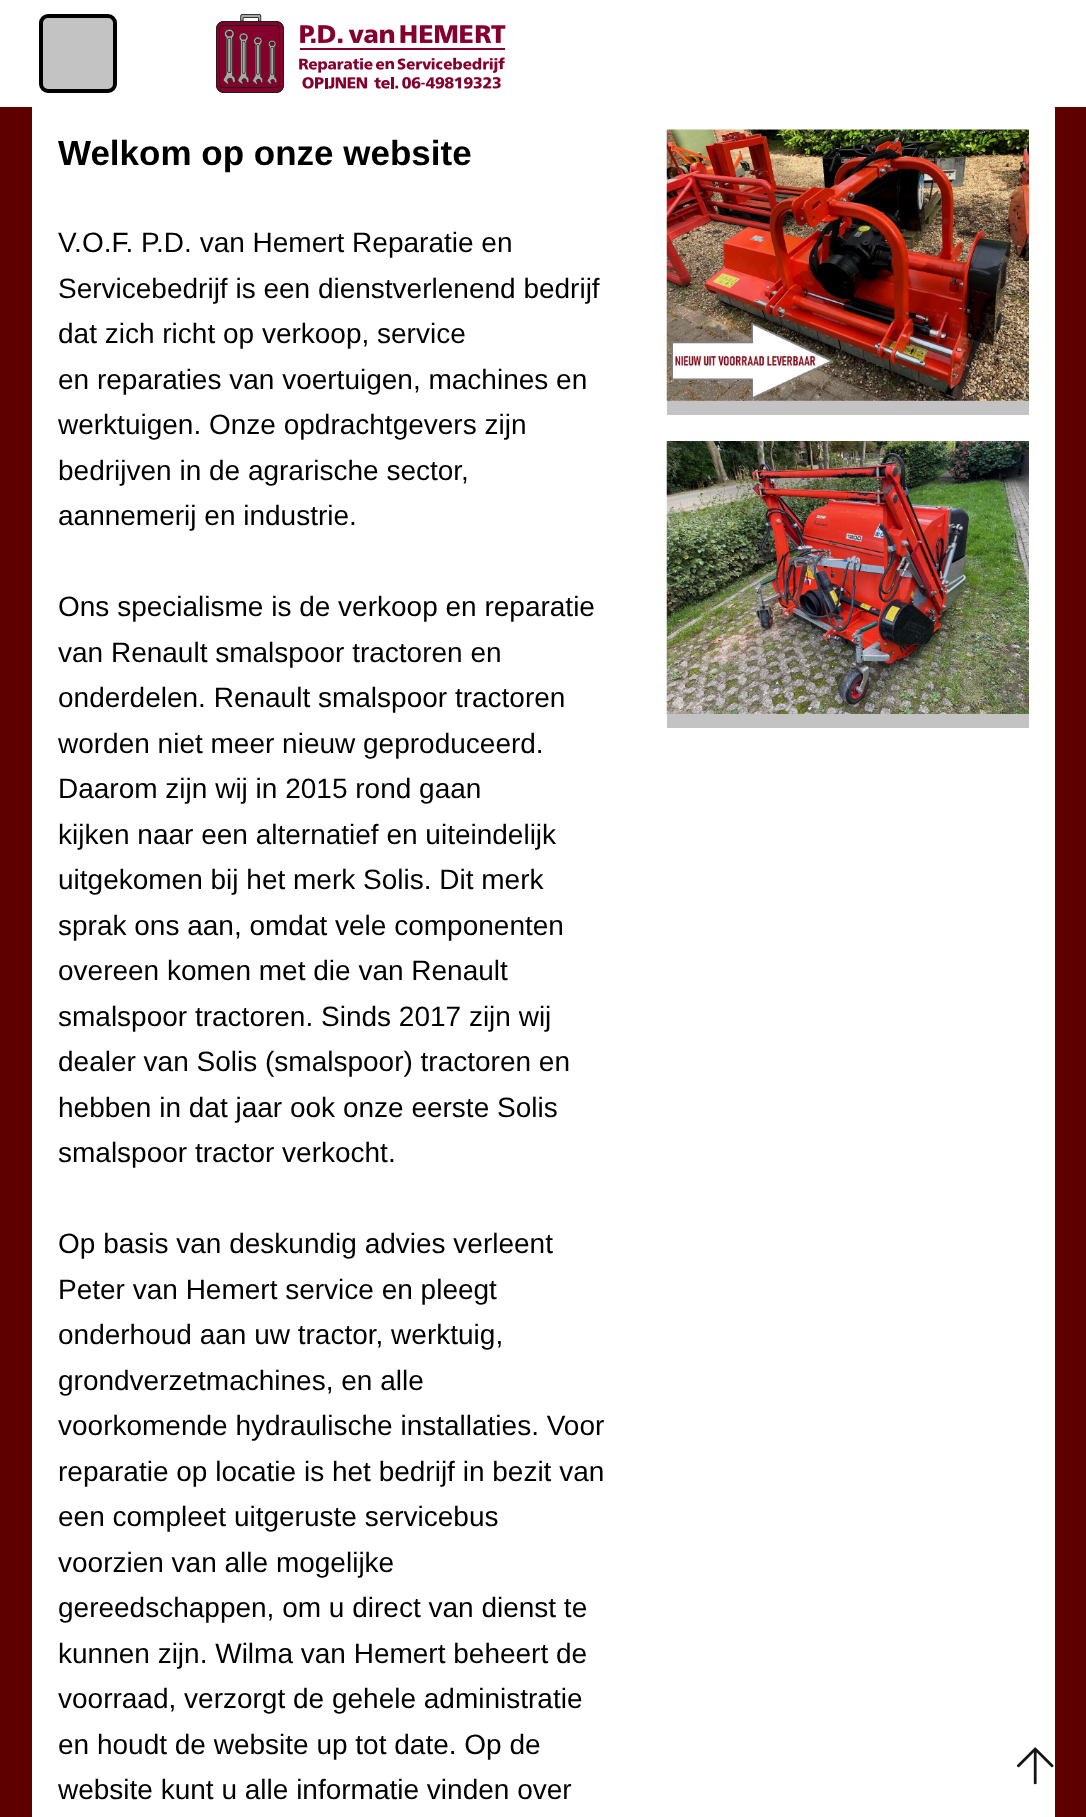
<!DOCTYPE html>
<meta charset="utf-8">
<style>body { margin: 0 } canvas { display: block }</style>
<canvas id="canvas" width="1086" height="1817"></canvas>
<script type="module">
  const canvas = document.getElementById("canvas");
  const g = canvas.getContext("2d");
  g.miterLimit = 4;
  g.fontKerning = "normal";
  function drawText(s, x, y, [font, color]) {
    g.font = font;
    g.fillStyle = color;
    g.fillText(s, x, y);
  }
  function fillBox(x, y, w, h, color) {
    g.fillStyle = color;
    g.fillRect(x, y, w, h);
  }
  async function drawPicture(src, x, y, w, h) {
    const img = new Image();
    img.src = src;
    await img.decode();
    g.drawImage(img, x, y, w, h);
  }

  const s1 = ["bold 35px Liberation Sans", "#000000"];
  const s2 = ["28px Liberation Sans", "#000000"];

  fillBox(0, 0, 1086, 1817, "#5F0000");
  fillBox(0, 0, 1086, 107, "#FFFFFF");
  g.fillStyle = "#C3C3C3";
  g.beginPath();
  g.roundRect(41, 16, 74, 75, 7);
  g.fill();
  g.strokeStyle = "#000000";
  g.lineWidth = 4;
  g.stroke();
  await drawPicture("pic1.png", 216, 14, 290, 79);
  fillBox(32, 107, 1023, 1710, "#FFFFFF");
  drawText("Welkom op onze website", 58, 165, s1);
  drawText("V.O.F. P.D. van Hemert Reparatie en", 58, 252, s2);
  drawText("Servicebedrijf is een dienstverlenend bedrijf", 58, 298, s2);
  drawText("dat zich richt op verkoop, service", 58, 343, s2);
  drawText("en reparaties van voertuigen, machines en", 58, 389, s2);
  drawText("werktuigen. Onze opdrachtgevers zijn", 58, 434, s2);
  drawText("bedrijven in de agrarische sector,", 58, 480, s2);
  drawText("aannemerij en industrie.", 58, 525, s2);
  drawText("Ons specialisme is de verkoop en reparatie", 58, 616, s2);
  drawText("van Renault smalspoor tractoren en", 58, 662, s2);
  drawText("onderdelen. Renault smalspoor tractoren", 58, 707, s2);
  drawText("worden niet meer nieuw geproduceerd.", 58, 753, s2);
  drawText("Daarom zijn wij in 2015 rond gaan", 58, 798, s2);
  drawText("kijken naar een alternatief en uiteindelijk", 58, 844, s2);
  drawText("uitgekomen bij het merk Solis. Dit merk", 58, 889, s2);
  drawText("sprak ons aan, omdat vele componenten", 58, 935, s2);
  drawText("overeen komen met die van Renault", 58, 980, s2);
  drawText("smalspoor tractoren. Sinds 2017 zijn wij", 58, 1026, s2);
  drawText("dealer van Solis (smalspoor) tractoren en", 58, 1071, s2);
  drawText("hebben in dat jaar ook onze eerste Solis", 58, 1117, s2);
  drawText("smalspoor tractor verkocht.", 58, 1162, s2);
  drawText("Op basis van deskundig advies verleent", 58, 1253, s2);
  drawText("Peter van Hemert service en pleegt", 58, 1299, s2);
  drawText("onderhoud aan uw tractor, werktuig,", 58, 1344, s2);
  drawText("grondverzetmachines, en alle", 58, 1390, s2);
  drawText("voorkomende hydraulische installaties. Voor", 58, 1435, s2);
  drawText("reparatie op locatie is het bedrijf in bezit van", 58, 1481, s2);
  drawText("een compleet uitgeruste servicebus", 58, 1526, s2);
  drawText("voorzien van alle mogelijke", 58, 1572, s2);
  drawText("gereedschappen, om u direct van dienst te", 58, 1617, s2);
  drawText("kunnen zijn. Wilma van Hemert beheert de", 58, 1663, s2);
  drawText("voorraad, verzorgt de gehele administratie", 58, 1708, s2);
  drawText("en houdt de website up tot date. Op de", 58, 1754, s2);
  drawText("website kunt u alle informatie vinden over", 58, 1799, s2);
  fillBox(667, 400, 362, 15, "#C3C3C3");
  await drawPicture("pic2.png", 666, 129, 363, 272);
  fillBox(667, 714, 362, 14, "#C3C3C3");
  await drawPicture("pic3.png", 666, 441, 363, 273);
  await drawPicture("pic4.png", 1016, 1747, 38, 38);
</script>
